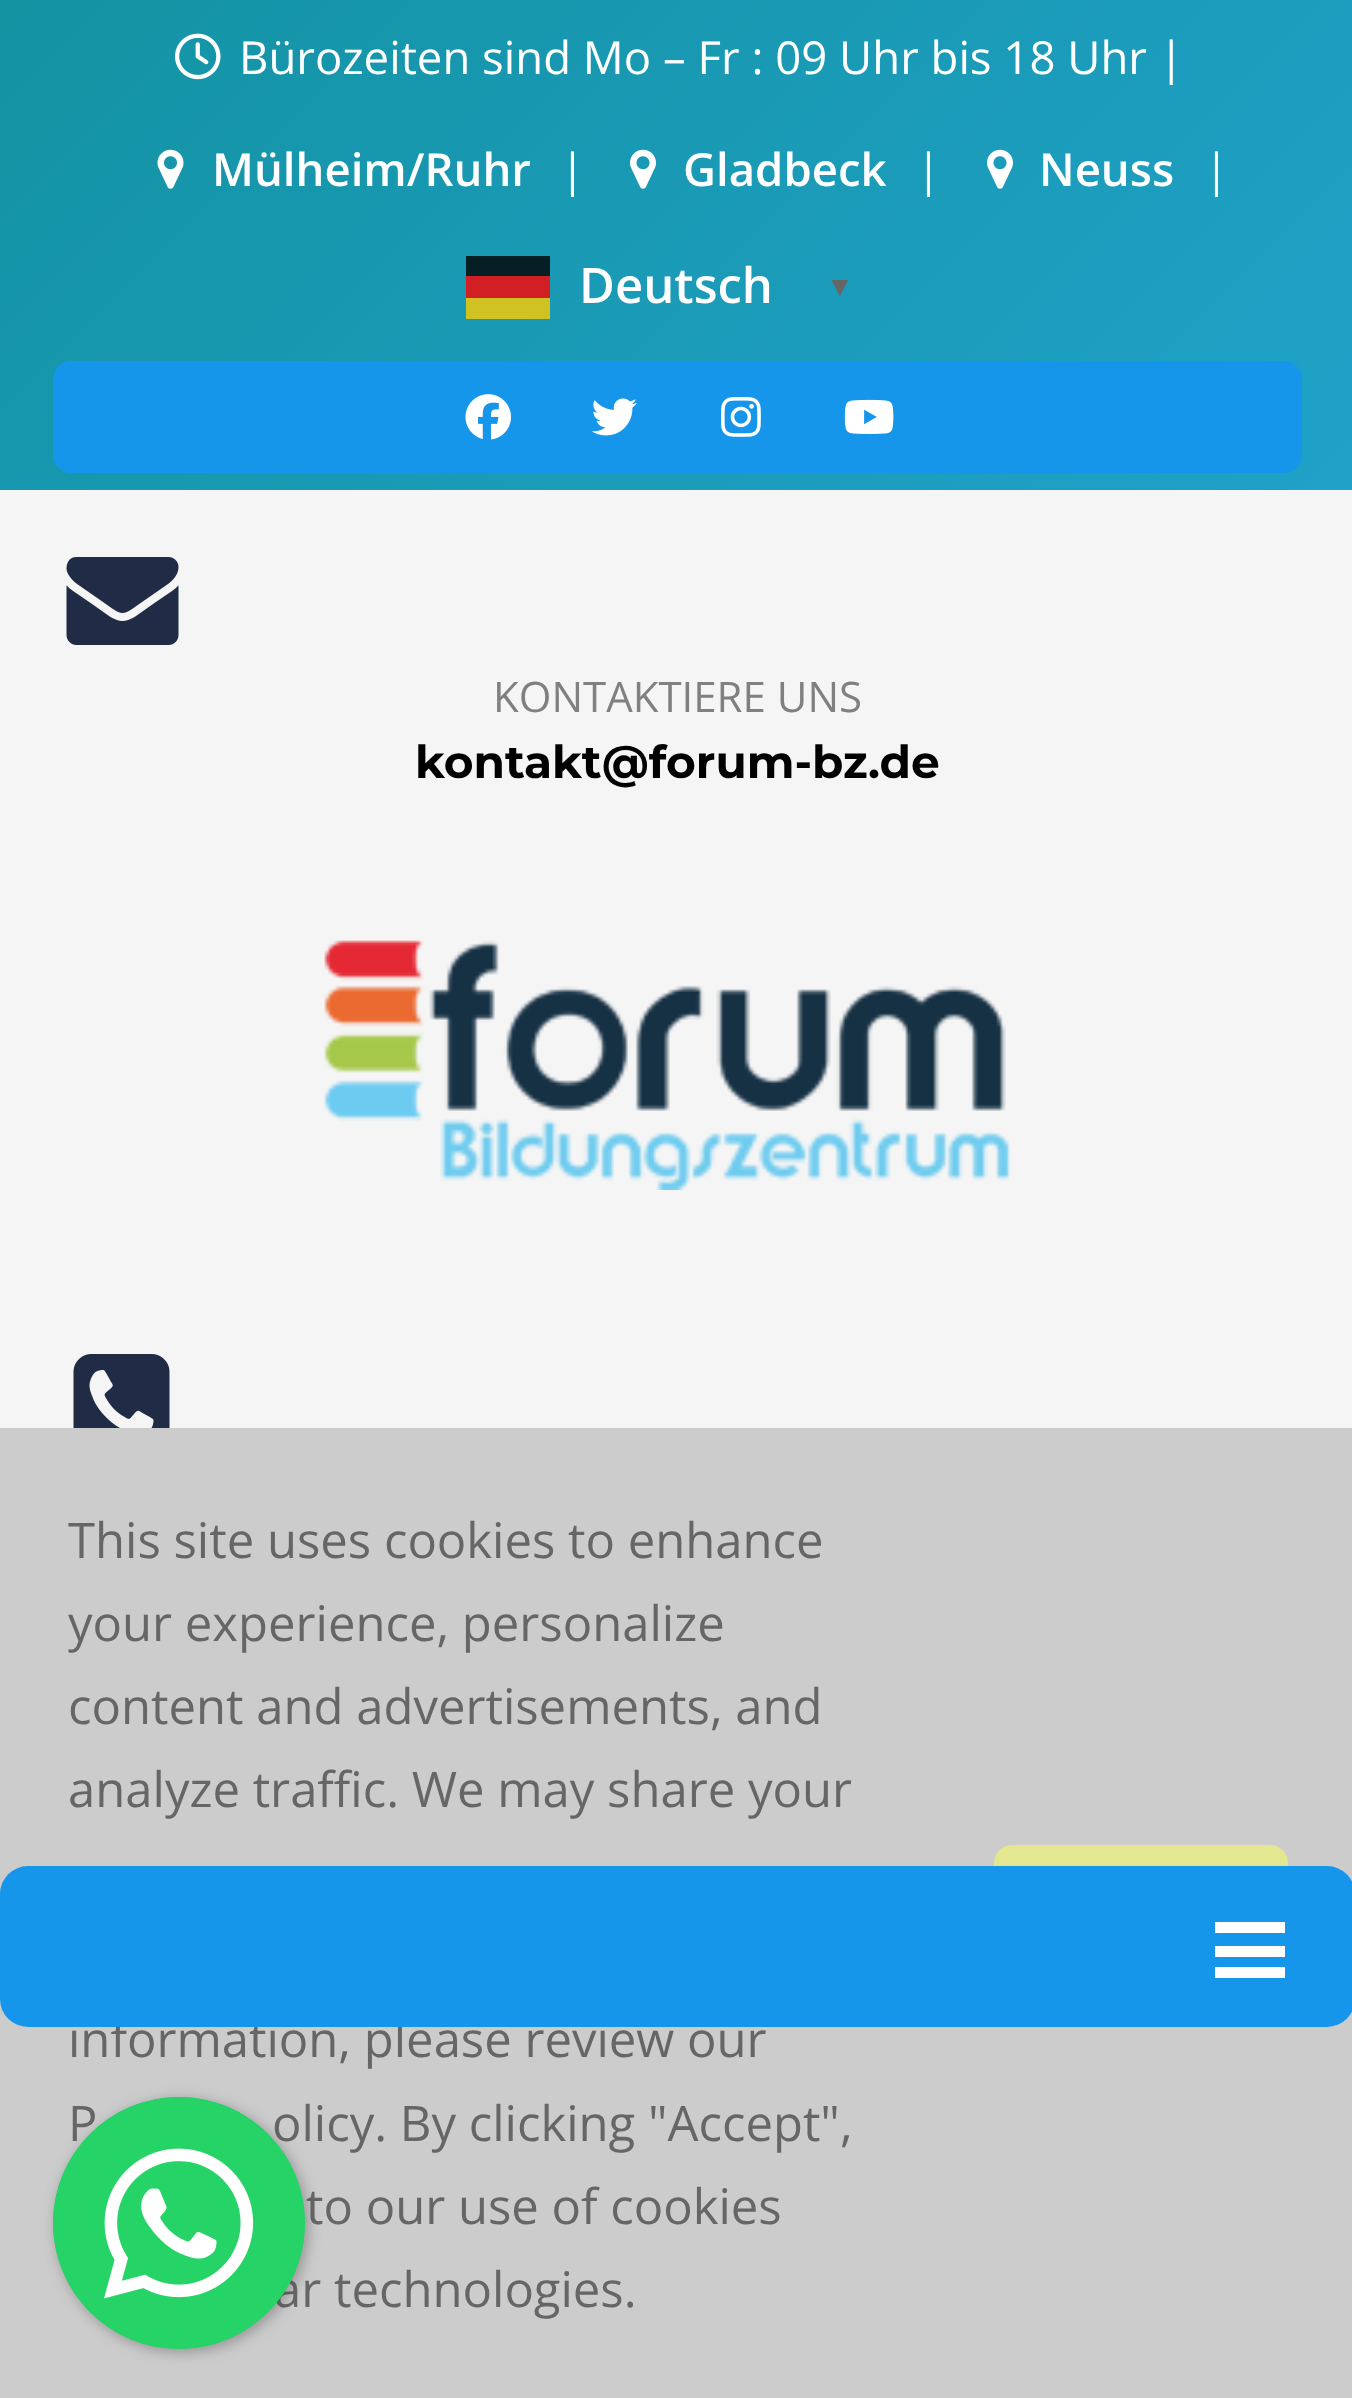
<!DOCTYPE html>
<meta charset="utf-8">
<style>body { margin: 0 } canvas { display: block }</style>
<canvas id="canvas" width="1352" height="2398"></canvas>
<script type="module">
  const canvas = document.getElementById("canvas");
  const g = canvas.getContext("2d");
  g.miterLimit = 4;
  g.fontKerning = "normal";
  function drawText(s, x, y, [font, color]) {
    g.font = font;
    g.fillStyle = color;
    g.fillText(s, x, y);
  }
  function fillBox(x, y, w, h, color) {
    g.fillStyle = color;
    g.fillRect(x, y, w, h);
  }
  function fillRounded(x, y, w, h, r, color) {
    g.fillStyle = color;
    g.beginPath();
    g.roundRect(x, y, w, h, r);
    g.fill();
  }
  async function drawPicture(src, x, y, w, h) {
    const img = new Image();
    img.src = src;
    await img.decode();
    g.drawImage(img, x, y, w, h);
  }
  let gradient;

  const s1 = ["45.5px Open Sans", "#FFFFFF"];
  const s2 = ["600 45.5px Open Sans", "#FFFFFF"];
  const s3 = ["600 49px Open Sans", "#FFFFFF"];
  const s4 = ["bold 28px Liberation Sans", "#666666"];
  const s5 = ["42px Open Sans", "#808080"];
  const s6 = ["bold 45.5px Montserrat", "#000000"];
  const s7 = ["49px Open Sans", "#666666"];

  fillBox(0, 0, 1352, 2398, "#FFFFFF");
  gradient = g.createLinearGradient(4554, 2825, 865, -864);
  gradient.addColorStop(0, "#164B74");
  gradient.addColorStop(0.33, "#154798");
  gradient.addColorStop(0.67, "#23A6D5");
  gradient.addColorStop(1, "#1493A3");
  g.fillStyle = gradient;
  g.fillRect(0, 0, 1352, 490);
  await drawPicture("pic1.png", 175, 33, 46, 47);
  drawText("Bürozeiten sind Mo – Fr : 09 Uhr bis 18 Uhr |", 239, 74, s1);
  await drawPicture("pic2.png", 157, 149, 27, 40);
  drawText("Mülheim/Ruhr", 212, 186, s2);
  drawText("|", 560, 186, s1);
  await drawPicture("pic3.png", 630, 149, 26, 40);
  drawText("Gladbeck", 683, 186, s2);
  drawText("|", 916, 186, s1);
  await drawPicture("pic4.png", 987, 149, 26, 40);
  drawText("Neuss", 1039, 186, s2);
  drawText("|", 1204, 186, s1);
  drawText("Deutsch", 579, 303, s3);
  fillBox(466, 298, 84, 21, "#D1C224");
  fillBox(466, 256, 84, 20, "#051F24");
  fillBox(466, 276, 84, 22, "#D11F24");
  drawText("▼", 826, 296, s4);
  fillRounded(53, 361, 1249, 112, 18, "#1596EB");
  await drawPicture("pic5.png", 465, 394, 46, 46);
  await drawPicture("pic6.png", 591, 398, 46, 38);
  await drawPicture("pic7.png", 721, 397, 40, 40);
  await drawPicture("pic8.png", 844, 399, 50, 35);
  fillBox(0, 490, 1352, 938, "#F5F5F5");
  await drawPicture("pic9.png", 66, 557, 113, 88);
  drawText("KONTAKTIERE UNS", 493, 712, s5);
  drawText("kontakt@forum-bz.de", 415, 778, s6);
  await drawPicture("pic10.png", 324, 940, 686, 250);
  await drawPicture("pic11.png", 73, 1354, 97, 74);
  fillBox(0, 1428, 1352, 970, "#CCCCCC");
  drawText("information, please review our", 68, 2057, s7);
  fillRounded(994, 1845, 294, 136, 18, "#E2E790");
  fillRounded(0, 1866, 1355, 161, 28, "#1596EB");
  fillBox(1215, 1922, 70, 11, "#FFFFFF");
  fillBox(1215, 1946, 70, 11, "#FFFFFF");
  fillBox(1215, 1967, 70, 11, "#FFFFFF");
  drawText("This site uses cookies to enhance", 68, 1558, s7);
  drawText("your experience, personalize", 68, 1641, s7);
  drawText("content and advertisements, and", 68, 1724, s7);
  drawText("analyze traffic. We may share your", 68, 1807, s7);
  drawText("P", 68, 2141, s7);
  drawText("olicy. By clicking \"Accept\",", 272, 2141, s7);
  drawText("to our use of cookies", 306, 2224, s7);
  drawText("ar technologies.", 274, 2307, s7);
  g.fillStyle = "rgba(60, 60, 60, 0.4)";
  g.filter = "blur(7px)";
  g.beginPath();
  g.roundRect(56, 2100, 252, 252, 126);
  g.fill();
  g.filter = "none";
  g.fillStyle = "#25D366";
  g.beginPath();
  g.arc(179, 2223, 126, 0, Math.PI * 2);
  g.fill();
  await drawPicture("pic12.png", 53, 2097, 252, 252);
</script>
